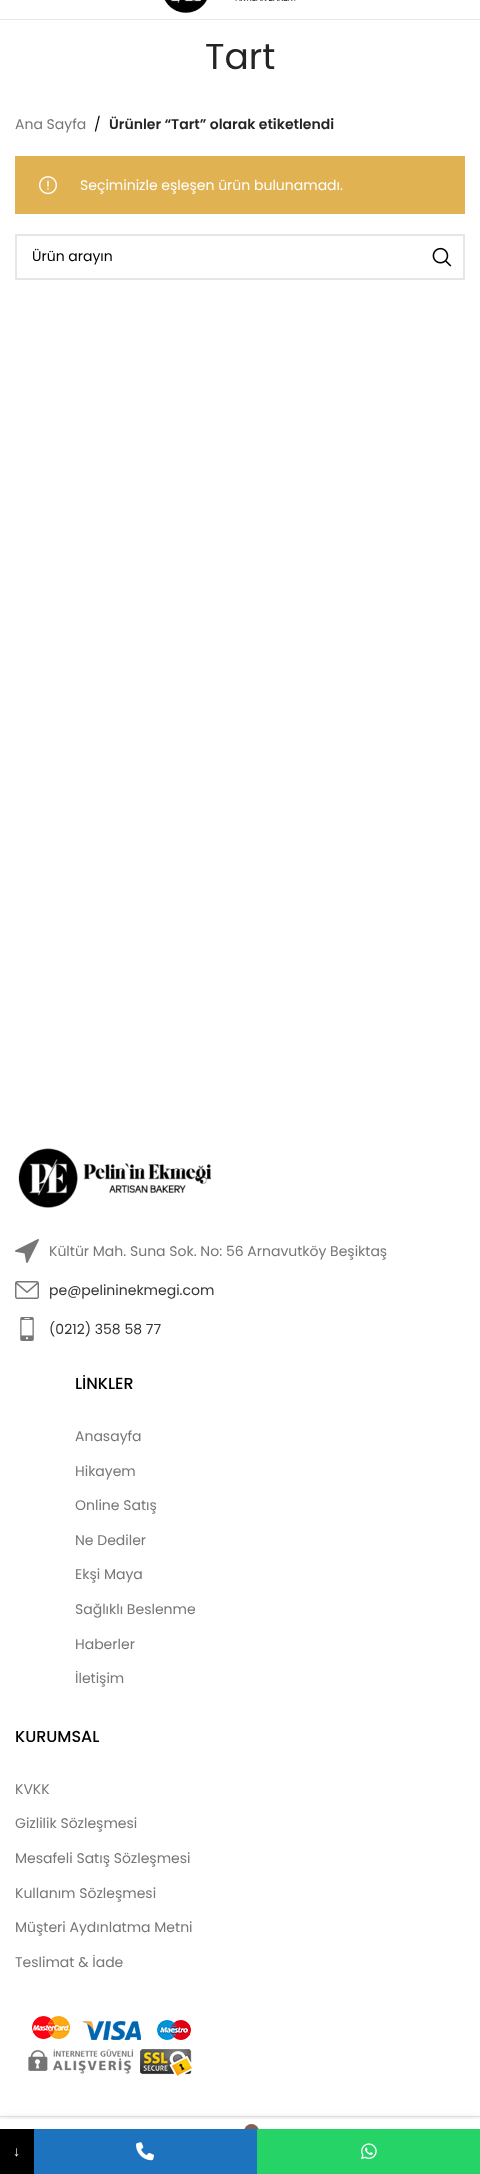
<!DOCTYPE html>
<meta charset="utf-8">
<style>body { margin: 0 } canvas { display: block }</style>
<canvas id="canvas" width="480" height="2174"></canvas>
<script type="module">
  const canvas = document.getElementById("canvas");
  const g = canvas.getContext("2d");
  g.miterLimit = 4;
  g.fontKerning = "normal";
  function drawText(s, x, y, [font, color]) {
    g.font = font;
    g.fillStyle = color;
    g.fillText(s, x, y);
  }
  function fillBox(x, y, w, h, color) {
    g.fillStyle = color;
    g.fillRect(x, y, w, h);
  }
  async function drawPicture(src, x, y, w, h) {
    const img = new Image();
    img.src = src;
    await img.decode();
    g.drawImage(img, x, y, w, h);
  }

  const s1 = ["36px Poppins", "#242424"];
  const s2 = ["14px Poppins", "#767676"];
  const s3 = ["14px Poppins", "#000000"];
  const s4 = ["600 14px Poppins", "#242424"];
  const s5 = ["14px Poppins", "#FFFFFF"];
  const s6 = ["14px Poppins", "#333333"];
  const s7 = ["500 16px Poppins", "#000000"];
  const s8 = ["14px Liberation Serif", "#FFFFFF"];

  fillBox(0, 0, 480, 2174, "#FFFFFF");
  fillBox(0, 19, 480, 1, "#E6E6E6");
  await drawPicture("pic1.png", 164, 0, 132, 14);
  drawText("Tart", 205, 69, s1);
  drawText("Ana Sayfa", 15, 129, s2);
  drawText("/", 94, 129, s3);
  drawText("Ürünler “Tart” olarak etiketlendi", 109, 129, s4);
  fillBox(15, 156, 450, 58, "#E0B252");
  await drawPicture("pic2.png", 39, 176, 18, 19);
  drawText("Seçiminizle eşleşen ürün bulunamadı.", 80, 190, s5);
  g.strokeStyle = "#E6E6E6";
  g.lineWidth = 2;
  g.strokeRect(16, 235, 448, 44);
  drawText("Ürün arayın", 32, 261, s3);
  await drawPicture("pic3.png", 432, 247, 20, 20);
  await drawPicture("pic4.png", 18, 1148, 194, 60);
  await drawPicture("pic5.png", 15, 1239, 24, 24);
  drawText("Kültür Mah. Suna Sok. No: 56 Arnavutköy Beşiktaş", 49, 1256, s2);
  await drawPicture("pic6.png", 15, 1281, 24, 18);
  drawText("pe@pelininekmegi.com", 49, 1295, s6);
  await drawPicture("pic7.png", 20, 1317, 14, 24);
  drawText("(0212) 358 58 77", 49, 1334, s6);
  drawText("LİNKLER", 75, 1389, s7);
  drawText("Anasayfa", 75, 1441, s2);
  drawText("Hikayem", 75, 1476, s2);
  drawText("Online Satış", 75, 1510, s2);
  drawText("Ne Dediler", 75, 1545, s2);
  drawText("Ekşi Maya", 75, 1579, s2);
  drawText("Sağlıklı Beslenme", 75, 1614, s2);
  drawText("Haberler", 75, 1649, s2);
  drawText("İletişim", 75, 1683, s2);
  drawText("KURUMSAL", 15, 1742, s7);
  drawText("KVKK", 15, 1794, s2);
  drawText("Gizlilik Sözleşmesi", 15, 1828, s2);
  drawText("Mesafeli Satış Sözleşmesi", 15, 1863, s2);
  drawText("Kullanım Sözleşmesi", 15, 1898, s2);
  drawText("Müşteri Aydınlatma Metni", 15, 1932, s2);
  drawText("Teslimat & İade", 15, 1967, s2);
  await drawPicture("pic8.png", 28, 2016, 164, 60);
  fillBox(0, 2116, 480, 1, "#E4E4E4");
  g.fillStyle = "rgba(0, 0, 0, 0.12)";
  g.filter = "blur(4.5px)";
  g.beginPath();
  g.rect(0, 2119, 480, 55);
  g.fill();
  g.filter = "none";
  fillBox(0, 2119, 480, 10, "#FFFFFF");
  g.fillStyle = "#7F6051";
  g.beginPath();
  g.arc(251.5, 2131.5, 7.5, 0, Math.PI * 2);
  g.fill();
  fillBox(0, 2129, 34, 45, "#000000");
  drawText("↓", 13, 2156, s8);
  fillBox(34, 2129, 223, 45, "#1E73BE");
  await drawPicture("pic9.png", 136, 2142, 18, 19);
  fillBox(257, 2129, 223, 45, "#26D367");
  await drawPicture("pic10.png", 361, 2143, 16, 17);
</script>
